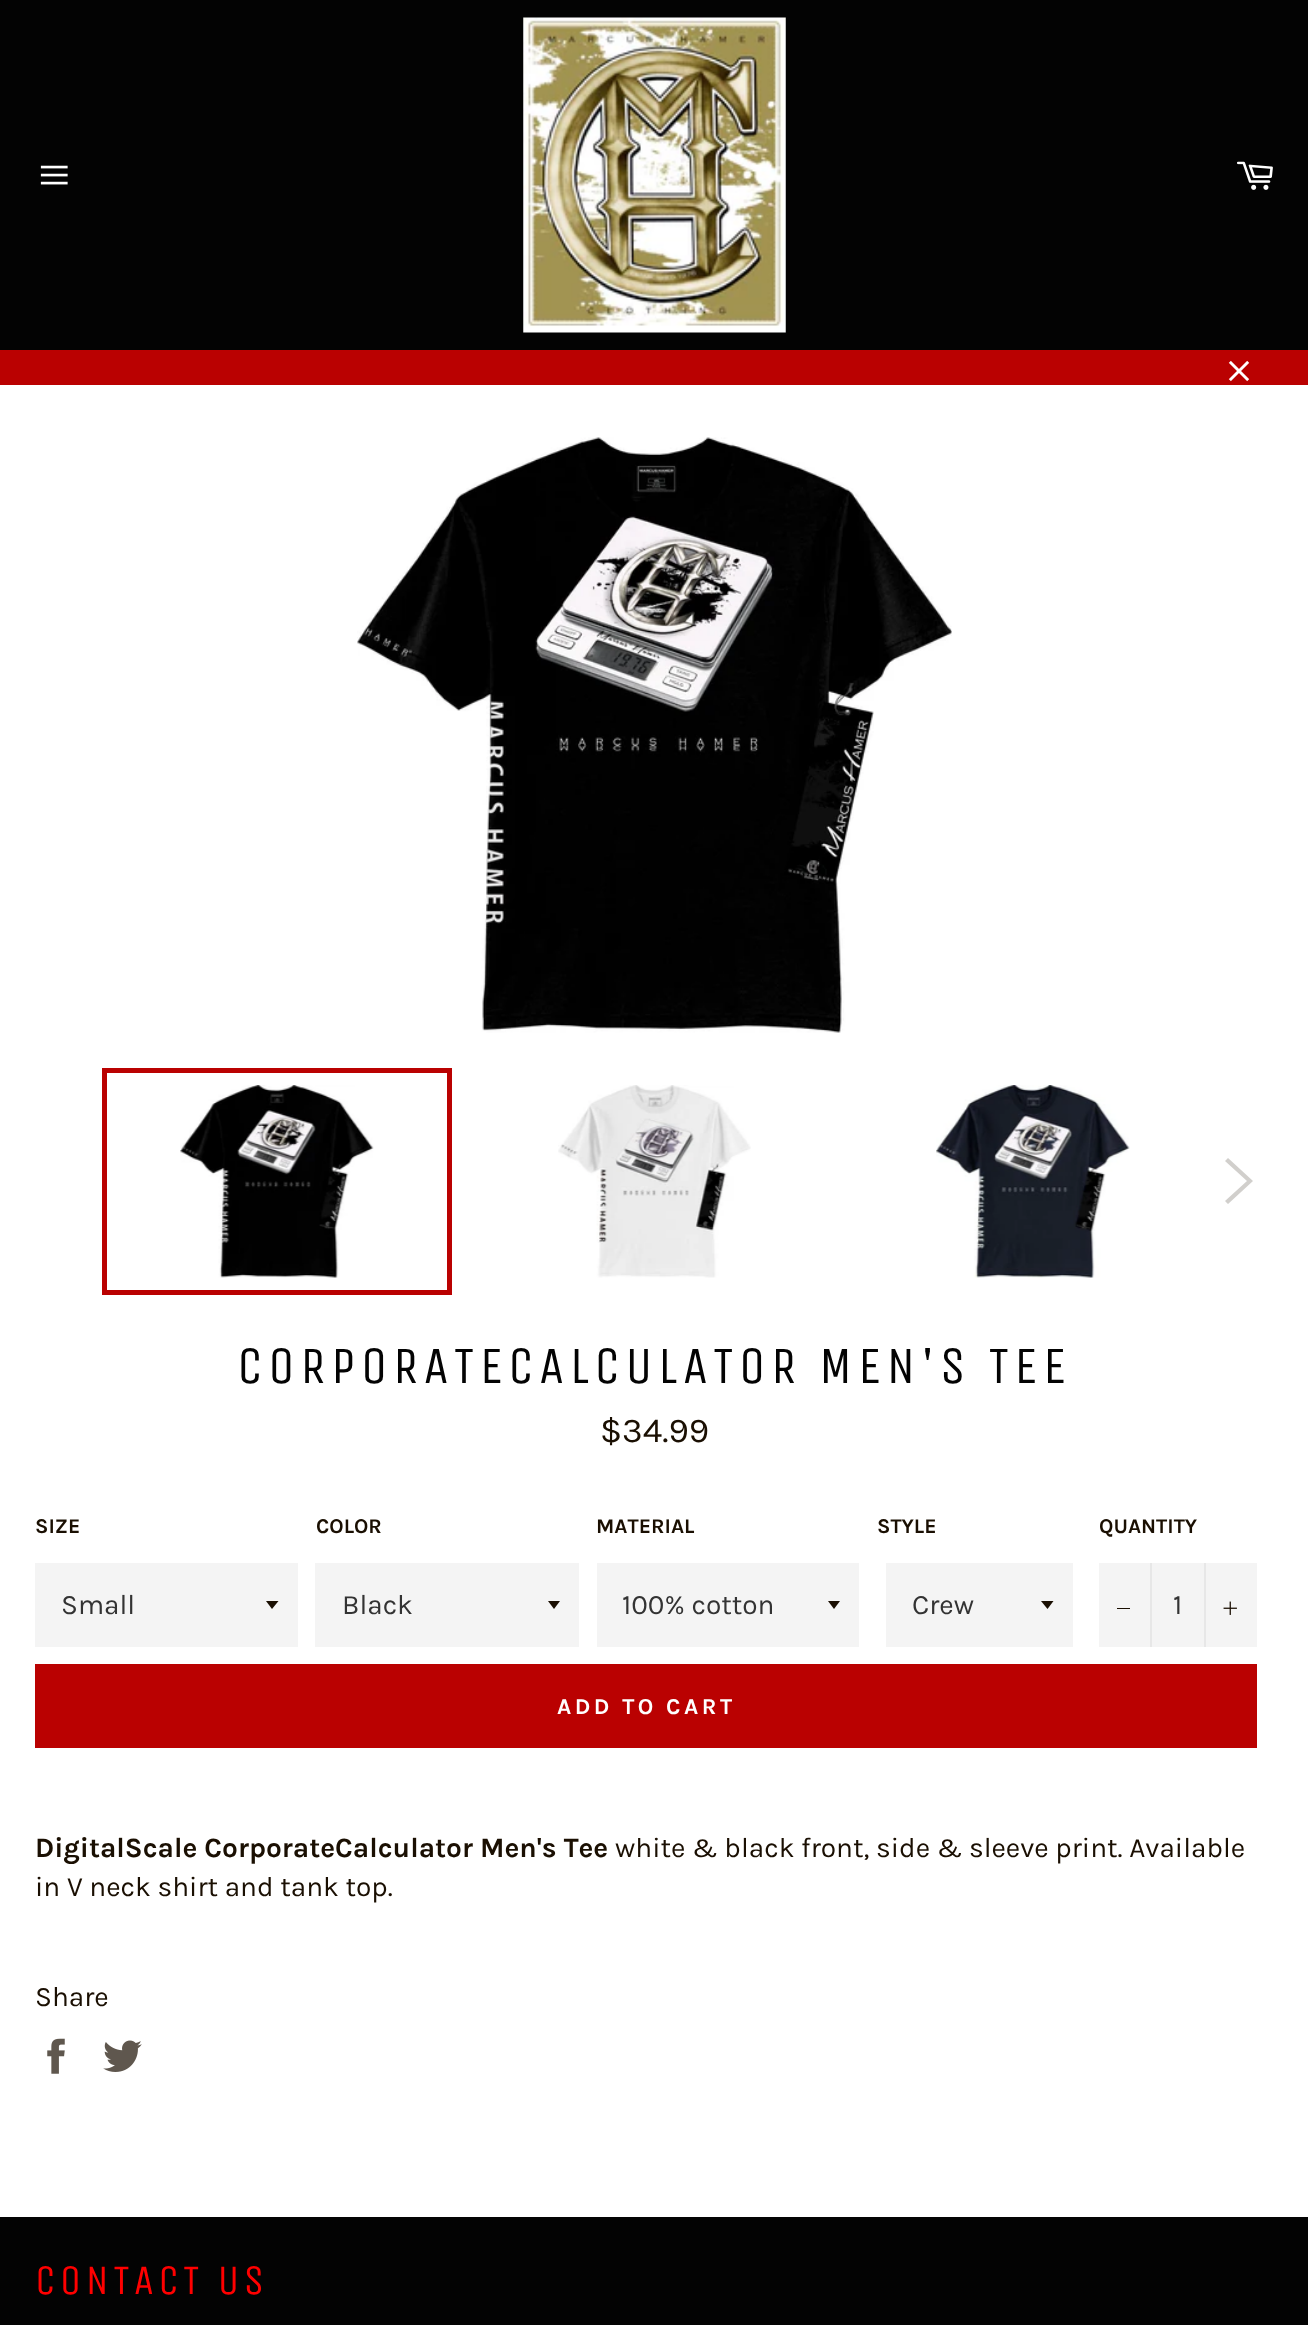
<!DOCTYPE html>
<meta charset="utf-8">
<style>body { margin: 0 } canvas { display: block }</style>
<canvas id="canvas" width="1308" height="2325"></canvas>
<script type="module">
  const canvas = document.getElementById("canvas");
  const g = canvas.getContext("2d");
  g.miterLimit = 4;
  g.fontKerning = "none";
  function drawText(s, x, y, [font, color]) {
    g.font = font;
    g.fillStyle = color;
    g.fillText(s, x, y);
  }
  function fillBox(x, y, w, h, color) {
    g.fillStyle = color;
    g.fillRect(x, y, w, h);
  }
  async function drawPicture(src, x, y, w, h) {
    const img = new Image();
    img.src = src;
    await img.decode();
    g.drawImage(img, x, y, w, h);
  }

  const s1 = ["52.5px Unica One", "#030303"];
  const s2 = ["35px Karla", "#1A0F02"];
  const s3 = ["bold 21px Karla", "#1A0F02"];
  const s4 = ["28px Karla", "#333333"];
  const s5 = ["bold 22.75px Karla", "#FFFFFF"];
  const s6 = ["bold 28px Karla", "#1A0F02"];
  const s7 = ["28px Karla", "#1A0F02"];
  const s8 = ["42px Unica One", "#FF0000"];

  fillBox(0, 0, 1308, 2325, "#FFFFFF");
  fillBox(0, 0, 1308, 350, "#030303");
  await drawPicture("pic1.png", 40, 165, 28, 20);
  await drawPicture("pic2.png", 523, 17, 263, 316);
  await drawPicture("pic3.png", 1237, 161, 36, 29);
  fillBox(0, 350, 1308, 35, "#BA0101");
  await drawPicture("pic4.png", 1228, 360, 22, 22);
  await drawPicture("pic5.png", 357, 437, 595, 596);
  await drawPicture("pic6.png", 180, 1085, 194, 193);
  g.strokeStyle = "#BA0101";
  g.lineWidth = 5;
  g.strokeRect(104.5, 1070.5, 345, 222);
  await drawPicture("pic7.png", 558, 1085, 193, 193);
  await drawPicture("pic8.png", 936, 1085, 194, 193);
  g.fillStyle = "#D1CFCC";
  g.beginPath();
  g.moveTo(1225, 1161);
  g.lineTo(1228, 1158);
  g.lineTo(1253, 1181);
  g.lineTo(1228, 1204);
  g.lineTo(1225, 1201);
  g.lineTo(1247, 1181);
  g.closePath();
  g.fill();
  g.letterSpacing = "5.25px";
  drawText("CORPORATECALCULATOR MEN'S TEE", 237, 1383, s1);
  g.letterSpacing = "0px";
  drawText("$34.99", 600, 1442, s2);
  drawText("SIZE", 35, 1533, s3);
  fillBox(35, 1563, 263, 84, "#F4F4F4");
  g.fillStyle = "#1A0F02";
  g.beginPath();
  g.moveTo(266, 1601);
  g.lineTo(272, 1609);
  g.lineTo(278.5, 1601);
  g.closePath();
  g.fill();
  drawText("Small", 61, 1614, s4);
  drawText("COLOR", 316, 1533, s3);
  fillBox(315, 1563, 264, 84, "#F4F4F4");
  g.fillStyle = "#1A0F02";
  g.beginPath();
  g.moveTo(548, 1601);
  g.lineTo(554, 1609);
  g.lineTo(560, 1601);
  g.closePath();
  g.fill();
  drawText("Black", 342, 1614, s4);
  drawText("MATERIAL", 596, 1533, s3);
  fillBox(597, 1563, 262, 84, "#F4F4F4");
  g.fillStyle = "#1A0F02";
  g.beginPath();
  g.moveTo(828, 1601);
  g.lineTo(834, 1609);
  g.lineTo(840, 1601);
  g.closePath();
  g.fill();
  drawText("100% cotton", 622, 1614, s4);
  drawText("STYLE", 877, 1533, s3);
  fillBox(886, 1563, 187, 84, "#F4F4F4");
  g.fillStyle = "#1A0F02";
  g.beginPath();
  g.moveTo(1041, 1601);
  g.lineTo(1047.5, 1609);
  g.lineTo(1053.5, 1601);
  g.closePath();
  g.fill();
  drawText("Crew", 912, 1614, s4);
  drawText("QUANTITY", 1099, 1533, s3);
  fillBox(1099, 1563, 158, 84, "#F4F4F4");
  fillBox(1150, 1563, 2, 84, "#E7E7E7");
  fillBox(1117, 1608, 13, 1, "#1A0F02");
  drawText("1", 1173, 1614, s4);
  fillBox(1204, 1563, 2, 84, "#E7E7E7");
  await drawPicture("pic9.png", 1223, 1601, 14, 14);
  fillBox(35, 1664, 1222, 84, "#BA0101");
  g.letterSpacing = "3.5px";
  drawText("ADD TO CART", 557, 1714, s5);
  g.letterSpacing = "0px";
  drawText("DigitalScale CorporateCalculator Men's Tee", 35, 1857, s6);
  drawText("white & black front, side & sleeve print. Available", 615, 1857, s7);
  drawText("in V neck shirt and tank top.", 35, 1896, s7);
  drawText("Share", 35, 2006, s7);
  await drawPicture("pic10.png", 47, 2038, 18, 36);
  await drawPicture("pic11.png", 103, 2040, 39, 32);
  fillBox(0, 2217, 1308, 108, "#030303");
  g.letterSpacing = "4.25px";
  drawText("CONTACT US", 35, 2294, s8);
</script>
